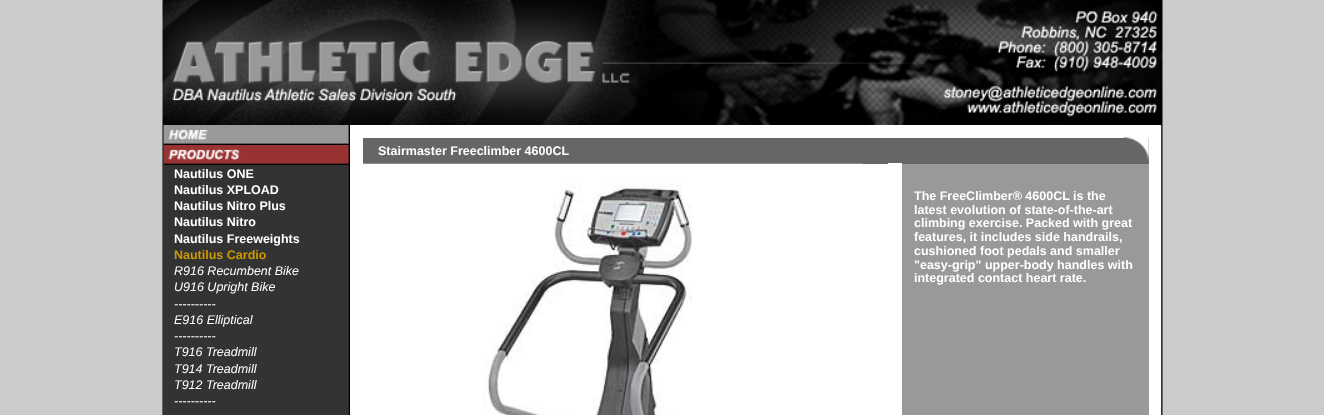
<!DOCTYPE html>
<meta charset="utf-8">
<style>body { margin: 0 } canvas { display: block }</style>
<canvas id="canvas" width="1324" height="415"></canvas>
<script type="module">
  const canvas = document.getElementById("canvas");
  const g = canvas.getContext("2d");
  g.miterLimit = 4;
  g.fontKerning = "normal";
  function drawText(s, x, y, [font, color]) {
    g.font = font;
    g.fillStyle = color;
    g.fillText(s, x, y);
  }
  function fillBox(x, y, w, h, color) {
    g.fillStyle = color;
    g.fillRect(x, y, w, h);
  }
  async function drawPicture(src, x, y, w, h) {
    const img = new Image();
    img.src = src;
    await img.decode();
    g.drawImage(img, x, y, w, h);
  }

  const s1 = ["bold 12.5px Liberation Sans", "#FFFFFF"];
  const s2 = ["bold 12.5px Liberation Sans", "#CC9900"];
  const s3 = ["italic 12.5px Liberation Sans", "#FFFFFF"];

  fillBox(0, 0, 1324, 415, "#CCCCCC");
  await drawPicture("pic1.png", 162, 0, 1001, 125);
  await drawPicture("pic2.png", 162, 125, 2, 290);
  fillBox(164, 125, 185, 290, "#333333");
  await drawPicture("pic3.png", 163, 125, 186, 19);
  await drawPicture("pic4.png", 163, 143, 186, 2);
  await drawPicture("pic5.png", 163, 145, 186, 19);
  await drawPicture("pic6.png", 163, 163, 186, 2);
  drawText("Nautilus ONE", 174, 178, s1);
  drawText("Nautilus XPLOAD", 174, 194, s1);
  drawText("Nautilus Nitro Plus", 174, 210, s1);
  drawText("Nautilus Nitro", 174, 226, s1);
  drawText("Nautilus Freeweights", 174, 243, s1);
  drawText("Nautilus Cardio", 174, 259, s2);
  drawText("R916 Recumbent Bike", 174, 275, s3);
  drawText("U916 Upright Bike", 174, 291, s3);
  drawText("----------", 174, 308, s3);
  drawText("E916 Elliptical", 174, 324, s3);
  drawText("----------", 174, 340, s3);
  drawText("T916 Treadmill", 174, 356, s3);
  drawText("T914 Treadmill", 174, 373, s3);
  drawText("T912 Treadmill", 174, 389, s3);
  drawText("----------", 174, 405, s3);
  await drawPicture("pic7.png", 348, 125, 2, 290);
  fillBox(350, 125, 811, 290, "#FFFFFF");
  fillBox(363, 138, 526, 26, "#666666");
  fillBox(889, 138, 12, 25, "#666666");
  fillBox(901, 138, 248, 26, "#666666");
  await drawPicture("pic8.png", 1123, 137, 26, 25);
  drawText("Stairmaster Freeclimber 4600CL", 378, 155, s1);
  await drawPicture("pic9.png", 363, 163, 500, 252);
  fillBox(888, 163, 14, 1, "#FFFFFF");
  fillBox(902, 164, 247, 251, "#999999");
  drawText("The FreeClimber® 4600CL is the", 914, 200, s1);
  drawText("latest evolution of state-of-the-art", 914, 214, s1);
  drawText("climbing exercise. Packed with great", 914, 227, s1);
  drawText("features, it includes side handrails,", 914, 241, s1);
  drawText("cushioned foot pedals and smaller", 914, 255, s1);
  drawText("\"easy-grip\" upper-body handles with", 914, 269, s1);
  drawText("integrated contact heart rate.", 914, 282, s1);
  await drawPicture("pic10.png", 1161, 125, 2, 290);
</script>
